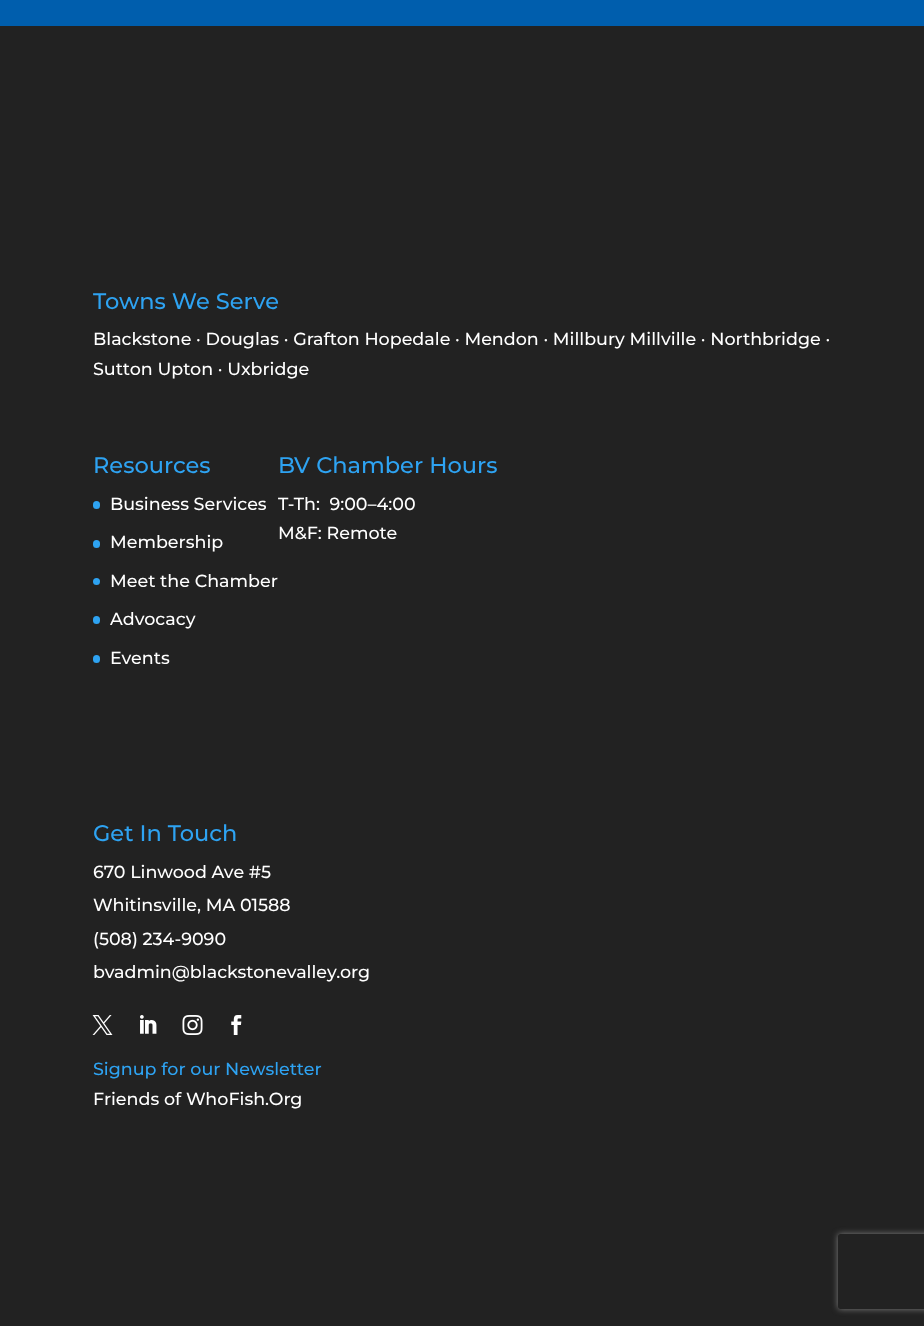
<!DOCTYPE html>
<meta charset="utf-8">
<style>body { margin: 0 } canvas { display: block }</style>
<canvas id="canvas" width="924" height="1326"></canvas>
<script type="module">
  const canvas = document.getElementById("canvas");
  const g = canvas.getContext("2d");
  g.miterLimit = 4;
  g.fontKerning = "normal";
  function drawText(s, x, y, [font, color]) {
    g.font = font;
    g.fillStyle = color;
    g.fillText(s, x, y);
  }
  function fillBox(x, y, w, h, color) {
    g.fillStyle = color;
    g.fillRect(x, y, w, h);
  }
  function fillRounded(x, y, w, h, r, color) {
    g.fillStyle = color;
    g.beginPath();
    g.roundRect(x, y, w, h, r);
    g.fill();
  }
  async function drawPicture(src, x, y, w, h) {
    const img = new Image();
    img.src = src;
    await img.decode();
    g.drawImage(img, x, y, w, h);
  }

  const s1 = ["500 22.5px Montserrat", "#2EA3F2"];
  const s2 = ["500 17.5px Montserrat", "#FFFFFF"];
  const s3 = ["500 17.5px Montserrat", "#2EA3F2"];

  fillBox(0, 0, 924, 1326, "#005EAD");
  fillBox(0, 26, 924, 1300, "#222222");
  drawText("Towns We Serve", 93, 309, s1);
  drawText("Blackstone · Douglas · Grafton Hopedale · Mendon · Millbury Millville · Northbridge ·", 93, 345, s2);
  drawText("Sutton Upton · Uxbridge", 93, 375, s2);
  drawText("Resources", 93, 473, s1);
  fillRounded(93, 501, 7, 8, 3.5, "#2EA3F2");
  drawText("Business Services", 110, 510, s2);
  fillRounded(93, 540, 7, 8, 3.5, "#2EA3F2");
  drawText("Membership", 110, 548, s2);
  g.fillStyle = "#2EA3F2";
  g.beginPath();
  g.arc(96.5, 581.5, 3.5, 0, Math.PI * 2);
  g.fill();
  drawText("Meet the Chamber", 110, 587, s2);
  fillRounded(93, 616, 7, 8, 3.5, "#2EA3F2");
  drawText("Advocacy", 110, 625, s2);
  fillRounded(93, 655, 7, 8, 3.5, "#2EA3F2");
  drawText("Events", 110, 664, s2);
  drawText("BV Chamber Hours", 278, 473, s1);
  drawText("T-Th:  9:00–4:00", 278, 510, s2);
  drawText("M&F: Remote", 278, 539, s2);
  drawText("Get In Touch", 93, 841, s1);
  drawText("670 Linwood Ave #5", 93, 878, s2);
  drawText("Whitinsville, MA 01588", 93, 911, s2);
  drawText("(508) 234-9090", 93, 945, s2);
  drawText("bvadmin@blackstonevalley.org", 93, 978, s2);
  await drawPicture("pic1.png", 92, 1015, 21, 20);
  await drawPicture("pic2.png", 140, 1015, 17, 19);
  await drawPicture("pic3.png", 182, 1015, 21, 20);
  await drawPicture("pic4.png", 231, 1015, 11, 20);
  drawText("Signup for our Newsletter", 93, 1075, s3);
  drawText("Friends of WhoFish.Org", 93, 1105, s2);
  g.save();
  g.beginPath();
  g.moveTo(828, 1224);
  g.lineTo(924, 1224);
  g.lineTo(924, 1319);
  g.lineTo(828, 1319);
  g.closePath();
  g.moveTo(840.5, 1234);
  g.lineTo(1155.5, 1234);
  g.bezierCurveTo(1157, 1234, 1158, 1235, 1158, 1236.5);
  g.lineTo(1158, 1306.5);
  g.bezierCurveTo(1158, 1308, 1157, 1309, 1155.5, 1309);
  g.lineTo(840.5, 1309);
  g.bezierCurveTo(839, 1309, 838, 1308, 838, 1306.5);
  g.lineTo(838, 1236.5);
  g.bezierCurveTo(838, 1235, 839, 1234, 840.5, 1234);
  g.closePath();
  g.clip("evenodd");
  g.fillStyle = "#808080";
  g.filter = "blur(3px)";
  g.beginPath();
  g.roundRect(838, 1234, 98, 75, 2.5);
  g.fill();
  g.filter = "none";
  g.restore();
</script>
